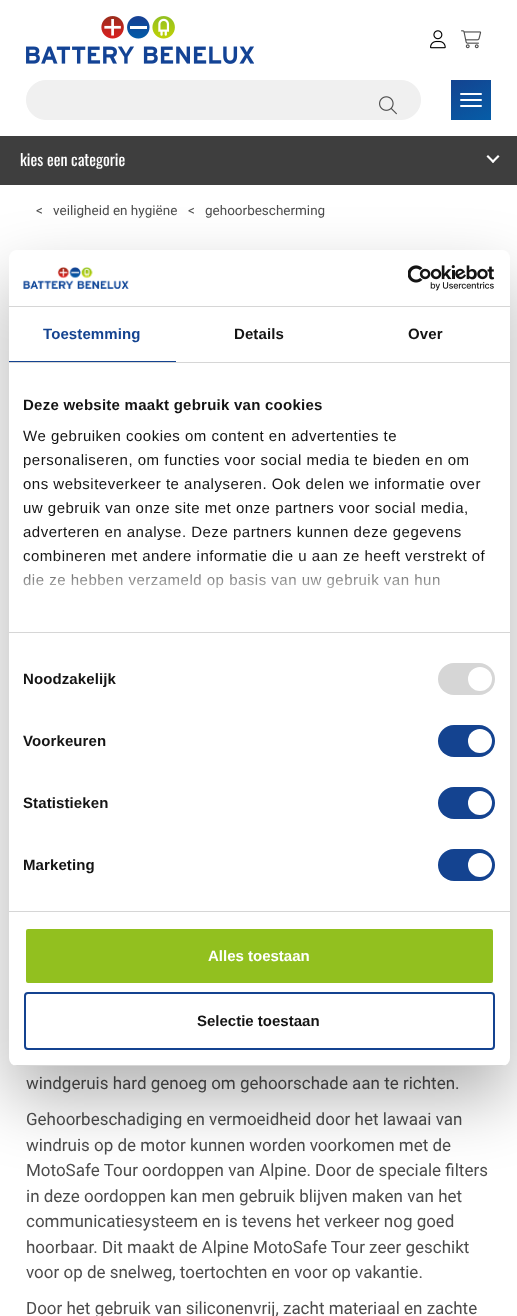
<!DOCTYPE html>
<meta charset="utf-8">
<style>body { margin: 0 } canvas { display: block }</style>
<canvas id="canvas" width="517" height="1316"></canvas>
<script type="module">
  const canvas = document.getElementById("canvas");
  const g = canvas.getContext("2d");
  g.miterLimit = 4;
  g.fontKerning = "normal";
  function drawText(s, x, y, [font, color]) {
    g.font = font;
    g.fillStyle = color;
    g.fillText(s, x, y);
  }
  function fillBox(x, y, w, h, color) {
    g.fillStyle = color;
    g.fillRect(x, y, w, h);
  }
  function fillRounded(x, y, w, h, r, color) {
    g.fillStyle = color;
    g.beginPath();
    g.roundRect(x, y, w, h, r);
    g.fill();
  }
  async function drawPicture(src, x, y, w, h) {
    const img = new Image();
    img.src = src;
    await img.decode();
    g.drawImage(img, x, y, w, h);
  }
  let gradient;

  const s1 = ["16px Oswald", "#FFFFFF"];
  const s2 = ["13.5px Roboto", "#4D4D4D"];
  const s3 = ["17px Roboto", "#4D4D4D"];
  const s4 = ["bold 15px Liberation Sans", "#144390"];
  const s5 = ["bold 15px Liberation Sans", "#141414"];
  const s6 = ["15px Liberation Sans", "#141414"];
  const s7 = ["bold 15px Liberation Sans", "#FFFFFF"];

  fillBox(0, 0, 517, 1316, "#FFFFFF");
  await drawPicture("pic1.png", 26, 16, 228, 48);
  await drawPicture("pic2.png", 430, 30, 16, 19);
  await drawPicture("pic3.png", 461, 30, 21, 19);
  g.fillStyle = "#F0F0F0";
  g.beginPath();
  g.roundRect(359.5, 80.5, 61, 39, [0, 19.5, 19.5, 0]);
  g.fill();
  g.strokeStyle = "#F0F0F0";
  g.stroke();
  g.beginPath();
  g.roundRect(26.5, 80.5, 333, 39, [19.5, 0, 0, 19.5]);
  g.fill();
  g.stroke();
  await drawPicture("pic4.png", 379, 96, 18, 19);
  gradient = g.createLinearGradient(458, 76, 484, 124);
  gradient.addColorStop(0, "#144390");
  gradient.addColorStop(1, "#065DA7");
  g.fillStyle = gradient;
  g.fillRect(451, 80, 40, 40);
  fillRounded(460, 93, 22, 2, 1, "#FFFFFF");
  fillRounded(460, 99, 22, 2, 1, "#FFFFFF");
  fillRounded(460, 105, 22, 2, 1, "#FFFFFF");
  fillBox(0, 136, 517, 49, "#3E3E3E");
  drawText("kies een categorie", 20, 166, s1);
  g.beginPath();
  g.moveTo(488, 155);
  g.lineTo(494.5, 161.5);
  g.lineTo(493, 163);
  g.lineTo(486.5, 156.5);
  g.closePath();
  g.fill();
  g.beginPath();
  g.moveTo(491.5, 161.5);
  g.lineTo(498, 155);
  g.lineTo(499.5, 156.5);
  g.lineTo(493, 163);
  g.closePath();
  g.fill();
  drawText("<", 36, 215, s2);
  drawText("veiligheid en hygiëne", 53, 215, s2);
  drawText("<", 188, 215, s2);
  drawText("gehoorbescherming", 205, 215, s2);
  drawText("windgeruis hard genoeg om gehoorschade aan te richten.", 26, 1089, s3);
  drawText("Gehoorbeschadiging en vermoeidheid door het lawaai van", 26, 1125, s3);
  drawText("windruis op de motor kunnen worden voorkomen met de", 26, 1151, s3);
  drawText("MotoSafe Tour oordoppen van Alpine. Door de speciale filters", 26, 1176, s3);
  drawText("in deze oordoppen kan men gebruik blijven maken van het", 26, 1202, s3);
  drawText("communicatiesysteem en is tevens het verkeer nog goed", 26, 1227, s3);
  drawText("hoorbaar. Dit maakt de Alpine MotoSafe Tour zeer geschikt", 26, 1253, s3);
  drawText("voor op de snelweg, toertochten en voor op vakantie.", 26, 1278, s3);
  drawText("Door het gebruik van siliconenvrij, zacht materiaal en zachte", 26, 1314, s3);
  g.fillStyle = "rgba(0, 0, 0, 0.3)";
  g.filter = "blur(34px)";
  g.beginPath();
  g.roundRect(9, 282, 501, 816, 8);
  g.fill();
  g.filter = "none";
  fillRounded(9, 250, 501, 816, 8, "#FFFFFF");
  fillBox(9, 306, 501, 1, "#D6D6D6");
  await drawPicture("pic5.png", 23, 267, 106, 22);
  await drawPicture("pic6.png", 408, 265, 87, 26);
  fillBox(9, 362, 501, 1, "#D6D6D6");
  fillBox(9, 361, 167, 1, "#144390");
  g.letterSpacing = "0.1px";
  drawText("Toestemming", 43, 339, s4);
  drawText("Details", 234, 339, s5);
  drawText("Over", 408, 339, s5);
  fillBox(9, 632, 501, 1, "#D6D6D6");
  g.letterSpacing = "0.25px";
  drawText("Deze website maakt gebruik van cookies", 23, 410, s5);
  g.letterSpacing = "0.5px";
  drawText("We gebruiken cookies om content en advertenties te", 23, 441, s6);
  drawText("personaliseren, om functies voor social media te bieden en om", 23, 465, s6);
  drawText("ons websiteverkeer te analyseren. Ook delen we informatie over", 23, 489, s6);
  drawText("uw gebruik van onze site met onze partners voor social media,", 23, 513, s6);
  drawText("adverteren en analyse. Deze partners kunnen deze gegevens", 23, 537, s6);
  drawText("combineren met andere informatie die u aan ze heeft verstrekt of", 23, 561, s6);
  drawText("die ze hebben verzameld op basis van uw gebruik van hun", 23, 585, s6);
  gradient = g.createLinearGradient(253, 632, 253, 557);
  gradient.addColorStop(0, "#FFFFFF");
  gradient.addColorStop(0.5, "rgba(255, 255, 255, 0.8)");
  gradient.addColorStop(1, "rgba(255, 255, 255, 0)");
  g.fillStyle = gradient;
  g.fillRect(23, 558, 461, 31);
  fillBox(9, 911, 501, 1, "#D6D6D6");
  g.letterSpacing = "0.1px";
  drawText("Noodzakelijk", 23, 684, s5);
  fillRounded(438, 663, 57, 32, 16, "#D6D6D6");
  g.fillStyle = "#FFFFFF";
  g.beginPath();
  g.arc(480, 679, 12, 0, Math.PI * 2);
  g.fill();
  drawText("Voorkeuren", 23, 746, s5);
  fillRounded(438, 725, 57, 32, 16, "#144390");
  g.fillStyle = "#FFFFFF";
  g.beginPath();
  g.arc(480, 741, 12, 0, Math.PI * 2);
  g.fill();
  drawText("Statistieken", 23, 808, s5);
  fillRounded(438, 787, 57, 32, 16, "#144390");
  g.fillStyle = "#FFFFFF";
  g.beginPath();
  g.arc(480, 803, 12, 0, Math.PI * 2);
  g.fill();
  drawText("Marketing", 23, 870, s5);
  fillRounded(438, 849, 57, 32, 16, "#144390");
  g.fillStyle = "#FFFFFF";
  g.beginPath();
  g.arc(480, 865, 12, 0, Math.PI * 2);
  g.fill();
  g.save();
  g.beginPath();
  g.roundRect(9, 250, 501, 816, 8);
  g.clip();
  fillBox(9, 1065, 501, 1, "#D6D6D6");
  g.restore();
  g.fillStyle = "#92C01F";
  g.beginPath();
  g.roundRect(25, 928, 469, 56, 3);
  g.fill();
  g.strokeStyle = "#FFFFFF";
  g.lineWidth = 2;
  g.stroke();
  g.letterSpacing = "0px";
  drawText("Alles toestaan", 208, 961, s7);
  g.beginPath();
  g.roundRect(25, 993, 469, 56, 3);
  g.strokeStyle = "#144390";
  g.stroke();
  drawText("Selectie toestaan", 197, 1026, s5);
</script>
